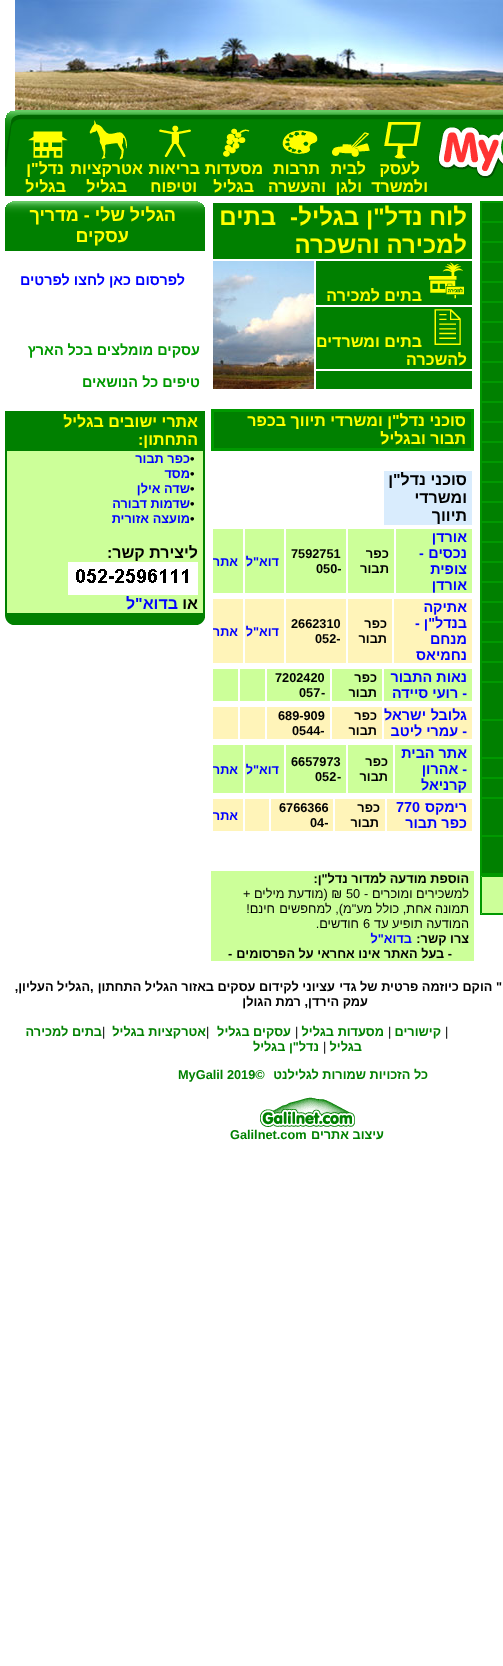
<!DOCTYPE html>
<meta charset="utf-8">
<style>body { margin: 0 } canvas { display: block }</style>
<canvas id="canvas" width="503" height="1666"></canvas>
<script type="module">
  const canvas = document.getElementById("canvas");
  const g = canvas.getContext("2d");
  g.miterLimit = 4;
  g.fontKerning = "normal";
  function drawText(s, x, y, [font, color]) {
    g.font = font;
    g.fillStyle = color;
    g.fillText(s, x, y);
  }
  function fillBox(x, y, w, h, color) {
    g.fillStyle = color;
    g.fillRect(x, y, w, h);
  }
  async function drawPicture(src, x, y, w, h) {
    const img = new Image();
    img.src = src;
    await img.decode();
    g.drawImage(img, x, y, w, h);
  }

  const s1 = ["bold 16px Liberation Sans", "#FFFF00"];
  const s2 = ["bold 24px Liberation Sans", "#FFFF00"];
  const s3 = ["bold 16px Liberation Sans", "#000000"];
  const s4 = ["bold 14.4px Liberation Sans", "#0000FF"];
  const s5 = ["bold 13px Liberation Sans", "#000000"];
  const s6 = ["bold 12.75px Liberation Sans", "#000000"];
  const s7 = ["bold 12.75px Liberation Sans", "#0000FF"];
  const s8 = ["12.75px Liberation Sans", "#000000"];
  const s9 = ["bold 18px Liberation Sans", "#FFFF00"];
  const s10 = ["bold 14.4px Liberation Sans", "#009900"];
  const s11 = ["bold 16px Liberation Sans", "#0000FF"];
  const s12 = ["bold 12.75px Liberation Sans", "#008000"];

  fillBox(0, 0, 503, 1666, "#FFFFFF");
  await drawPicture("pic1.png", 15, 0, 488, 110);
  fillBox(5, 120, 498, 76, "#008000");
  await drawPicture("pic2.png", 433, 110, 70, 68);
  await drawPicture("pic3.png", 25, 110, 408, 10);
  await drawPicture("pic4.png", 5, 110, 20, 57);
  await drawPicture("pic5.png", 384, 122, 37, 37);
  await drawPicture("pic6.png", 332, 132, 38, 25);
  await drawPicture("pic7.png", 282, 130, 36, 24);
  await drawPicture("pic8.png", 223, 128, 27, 29);
  await drawPicture("pic9.png", 159, 125, 32, 32);
  await drawPicture("pic10.png", 89, 120, 38, 40);
  await drawPicture("pic11.png", 28, 131, 40, 27);
  g.direction = "rtl";
  drawText("לעסק", 420, 174, s1);
  drawText("ו", 428, 192, s1);
  drawText("למשרד", 423, 192, s1);
  drawText("ל", 366, 174, s1);
  drawText("בית", 357, 174, s1);
  drawText("ו", 362, 192, s1);
  drawText("ל", 357, 192, s1);
  drawText("גן", 348, 192, s1);
  drawText("תרבות", 320, 174, s1);
  drawText("והעשרה", 326, 192, s1);
  drawText("מסעדות", 263, 174, s1);
  drawText("בגליל", 254, 192, s1);
  drawText("בריאות", 200, 174, s1);
  drawText("וטיפוח", 197, 192, s1);
  drawText("אטרקציות", 143, 174, s1);
  drawText("בגליל", 127, 192, s1);
  drawText("נדל\"ן", 64, 174, s1);
  drawText("בגליל", 66, 192, s1);
  fillBox(482, 203, 21, 670, "#008000");
  g.strokeStyle = "#009900";
  g.strokeRect(480.5, 201.5, 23, 673);
  g.strokeRect(481.5, 202.5, 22, 19);
  g.strokeRect(481.5, 222.5, 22, 19);
  g.strokeRect(481.5, 242.5, 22, 19);
  g.strokeRect(481.5, 262.5, 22, 19);
  g.strokeRect(481.5, 282.5, 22, 19);
  g.strokeRect(481.5, 302.5, 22, 19);
  g.strokeRect(481.5, 322.5, 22, 19);
  g.strokeRect(481.5, 342.5, 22, 19);
  g.strokeRect(481.5, 362.5, 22, 19);
  g.strokeRect(481.5, 382.5, 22, 19);
  g.strokeRect(481.5, 402.5, 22, 19);
  g.strokeRect(481.5, 422.5, 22, 19);
  g.strokeRect(481.5, 442.5, 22, 19);
  g.strokeRect(481.5, 462.5, 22, 19);
  g.strokeRect(481.5, 482.5, 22, 19);
  g.strokeRect(481.5, 502.5, 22, 19);
  g.strokeRect(481.5, 522.5, 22, 19);
  g.strokeRect(481.5, 542.5, 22, 19);
  g.strokeRect(481.5, 562.5, 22, 19);
  g.strokeRect(481.5, 582.5, 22, 19);
  g.strokeRect(481.5, 602.5, 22, 19);
  g.strokeRect(481.5, 622.5, 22, 19);
  g.strokeRect(481.5, 642.5, 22, 19);
  g.strokeRect(481.5, 662.5, 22, 19);
  g.strokeRect(481.5, 682.5, 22, 37);
  g.strokeRect(481.5, 720.5, 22, 37);
  g.strokeRect(481.5, 758.5, 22, 19);
  g.strokeRect(481.5, 778.5, 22, 19);
  g.strokeRect(481.5, 798.5, 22, 37);
  g.strokeRect(481.5, 836.5, 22, 37);
  g.strokeRect(480.5, 875.5, 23, 39);
  g.fillStyle = "#CCFF99";
  g.beginPath();
  g.rect(481.5, 876.5, 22, 37);
  g.fill();
  g.stroke();
  fillBox(213, 203, 259, 56, "#008000");
  drawText("לוח נדל\"ן בגליל", 467, 225, s2);
  g.direction = "ltr";
  drawText("-", 290, 225, s2);
  g.direction = "rtl";
  drawText("בתים", 276, 225, s2);
  drawText("למכירה והשכרה", 467, 253, s2);
  fillBox(316, 261, 156, 44, "#008000");
  await drawPicture("pic12.png", 429, 262, 35, 37);
  drawText("בתים", 422, 301, s1);
  drawText("למכירה", 380, 301, s1);
  await drawPicture("pic13.png", 213, 261, 101, 128);
  fillBox(316, 307, 156, 62, "#008000");
  await drawPicture("pic14.png", 434, 309, 27, 36);
  drawText("בתים ומשרדים", 422, 347, s1);
  drawText("להשכרה", 467, 365, s1);
  fillBox(316, 371, 156, 18, "#008000");
  fillBox(214, 412, 257, 36, "#008000");
  g.lineWidth = 2;
  g.strokeRect(212, 410, 261, 40);
  g.lineWidth = 1;
  g.strokeRect(213.5, 411.5, 258, 37);
  drawText("סוכני נדל\"ן ומשרדי תיווך", 466, 426, s1);
  drawText("בכפר", 286, 426, s1);
  drawText("תבור ובגליל", 466, 444, s1);
  fillBox(384, 471, 88, 54, "#D9ECFD");
  drawText("סוכני נדל\"ן", 467, 485, s3);
  drawText("ומשרדי", 467, 503, s3);
  drawText("תיווך", 467, 521, s3);
  fillBox(396, 529, 76, 64, "#CCFF99");
  drawText("אורדן", 467, 542, s4);
  drawText("נכסים", 467, 558, s4);
  g.direction = "ltr";
  drawText("-", 419, 558, s4);
  g.direction = "rtl";
  drawText("צופית", 467, 574, s4);
  drawText("אורדן", 467, 590, s4);
  fillBox(348, 529, 46, 64, "#CCFF99");
  drawText("כפר", 389, 558, s5);
  drawText("תבור", 389, 573, s5);
  fillBox(286, 529, 60, 64, "#CCFF99");
  g.direction = "ltr";
  drawText("7592751", 291, 558, s6);
  drawText("050-", 316, 573, s6);
  fillBox(245, 529, 39, 64, "#CCFF99");
  g.direction = "rtl";
  drawText("דוא\"ל", 279, 566, s7);
  fillBox(213, 529, 30, 64, "#CCFF99");
  drawText("אתר", 238, 566, s7);
  fillBox(394, 599, 78, 64, "#FFF4B9");
  drawText("אתיקה", 467, 612, s4);
  drawText("בנדל\"ן -", 467, 628, s4);
  drawText("מנחם", 467, 644, s4);
  drawText("נחמיאס", 467, 660, s4);
  fillBox(348, 599, 44, 64, "#FFF4B9");
  drawText("כפר", 387, 628, s6);
  drawText("תבור", 387, 643, s6);
  fillBox(286, 599, 60, 64, "#FFF4B9");
  g.direction = "ltr";
  drawText("2662310", 291, 628, s6);
  drawText("052-", 315, 643, s6);
  fillBox(245, 599, 39, 64, "#FFF4B9");
  g.direction = "rtl";
  drawText("דוא\"ל", 279, 636, s7);
  fillBox(213, 599, 30, 64, "#FFF4B9");
  drawText("אתר", 238, 636, s7);
  fillBox(384, 669, 88, 32, "#CCFF99");
  drawText("נאות התבור", 467, 682, s4);
  drawText("- רועי סיידה", 467, 698, s4);
  fillBox(332, 669, 50, 32, "#CCFF99");
  drawText("כפר", 377, 682, s6);
  drawText("תבור", 377, 697, s6);
  fillBox(267, 669, 63, 32, "#CCFF99");
  g.direction = "ltr";
  drawText("7202420", 275, 682, s6);
  drawText("-", 321, 697, s6);
  drawText("057", 299, 697, s6);
  fillBox(240, 669, 25, 32, "#CCFF99");
  fillBox(213, 669, 25, 32, "#CCFF99");
  fillBox(384, 707, 88, 32, "#FFF4B9");
  g.direction = "rtl";
  drawText("גלובל", 467, 720, s4);
  drawText("ישראל", 426, 720, s4);
  drawText("- עמרי ליטב", 467, 736, s4);
  fillBox(332, 707, 50, 32, "#FFF4B9");
  drawText("כפר", 377, 720, s6);
  drawText("תבור", 377, 735, s6);
  fillBox(267, 707, 63, 32, "#FFF4B9");
  g.direction = "ltr";
  drawText("689-909", 278, 720, s6);
  drawText("0544-", 292, 735, s6);
  fillBox(240, 707, 25, 32, "#FFF4B9");
  fillBox(213, 707, 25, 32, "#FFF4B9");
  fillBox(395, 745, 77, 48, "#CCFF99");
  g.direction = "rtl";
  drawText("אתר הבית", 467, 758, s4);
  drawText("- אהרון", 467, 774, s4);
  drawText("קרניאל", 467, 790, s4);
  fillBox(348, 745, 45, 48, "#CCFF99");
  drawText("כפר", 388, 766, s6);
  drawText("תבור", 388, 781, s6);
  fillBox(286, 745, 60, 48, "#CCFF99");
  g.direction = "ltr";
  drawText("6657973", 291, 766, s6);
  drawText("-", 337, 781, s6);
  drawText("052", 315, 781, s6);
  fillBox(245, 745, 39, 48, "#CCFF99");
  g.direction = "rtl";
  drawText("דוא\"ל", 279, 774, s7);
  fillBox(213, 745, 30, 48, "#CCFF99");
  drawText("אתר", 238, 774, s7);
  fillBox(387, 799, 85, 32, "#FFF4B9");
  drawText("רימקס", 467, 812, s4);
  g.direction = "ltr";
  drawText("770", 396, 812, s4);
  g.direction = "rtl";
  drawText("כפר תבור", 467, 828, s4);
  fillBox(335, 799, 50, 32, "#FFF4B9");
  drawText("כפר", 380, 812, s6);
  drawText("תבור", 379, 827, s6);
  fillBox(271, 799, 62, 32, "#FFF4B9");
  g.direction = "ltr";
  drawText("6766366", 279, 812, s6);
  drawText("04-", 310, 827, s6);
  fillBox(245, 799, 24, 32, "#FFF4B9");
  fillBox(213, 799, 30, 32, "#FFF4B9");
  g.direction = "rtl";
  drawText("אתר", 238, 820, s7);
  fillBox(211, 871, 263, 90, "#CCFF99");
  drawText("הוספת מודעה למדור נדל\"ן:", 469, 883, s6);
  drawText("למשכירים ומוכרים -", 469, 898, s8);
  g.direction = "ltr";
  drawText("50", 346, 898, s8);
  g.direction = "rtl";
  drawText("₪ (מודעת מילים +", 342, 898, s8);
  drawText("תמונה אחת, כולל מע\"מ), למחפשים", 469, 913, s8);
  drawText("חינם!", 275, 913, s8);
  drawText("המודעה תופיע עד", 469, 928, s8);
  g.direction = "ltr";
  drawText("6", 363, 928, s8);
  g.direction = "rtl";
  drawText("חודשים.", 359, 928, s8);
  drawText("צרו קשר:", 469, 943, s6);
  drawText("בדוא\"ל", 412, 943, s7);
  drawText("- בעל האתר אינו אחראי על הפרסומים", 452, 958, s6);
  g.direction = "ltr";
  drawText("-", 228, 958, s6);
  await drawPicture("pic15.png", 5, 201, 200, 50);
  g.direction = "rtl";
  drawText("ה", 176, 221, s9);
  drawText("גליל", 164, 221, s9);
  drawText("שלי - מדריך", 125, 221, s9);
  drawText("עסקים", 129, 242, s9);
  drawText("לפרסום כאן לחצו לפרטים", 185, 285, s4);
  drawText("עסקים מומלצים בכל הארץ", 200, 355, s10);
  drawText("טיפים כל", 200, 387, s10);
  drawText("הנושאים", 138, 387, s10);
  fillBox(5, 615, 200, 10, "#008000");
  fillBox(7, 451, 196, 162, "#CCFF99");
  g.strokeStyle = "#008000";
  g.strokeRect(5.5, 411.5, 199, 203);
  fillBox(6, 412, 198, 38, "#008000");
  drawText("אתרי ישובים בגליל", 198, 427, s1);
  drawText("התחתון", 198, 445, s1);
  g.direction = "ltr";
  drawText(":", 138, 445, s1);
  g.strokeRect(6.5, 450.5, 197, 163);
  drawText("•", 190, 463, s6);
  g.direction = "rtl";
  drawText("כפר תבור", 190, 463, s7);
  g.direction = "ltr";
  drawText("•", 190, 478, s6);
  g.direction = "rtl";
  drawText("מסד", 190, 478, s7);
  g.direction = "ltr";
  drawText("•", 190, 493, s6);
  g.direction = "rtl";
  drawText("שדה אילן", 190, 493, s7);
  g.direction = "ltr";
  drawText("•", 190, 508, s6);
  g.direction = "rtl";
  drawText("שדמות דבורה", 190, 508, s7);
  g.direction = "ltr";
  drawText("•", 190, 523, s6);
  g.direction = "rtl";
  drawText("מועצה", 190, 523, s7);
  drawText("אזורית", 149, 523, s7);
  drawText("ליצירת קשר", 198, 558, s3);
  g.direction = "ltr";
  drawText(":", 107, 558, s3);
  await drawPicture("pic16.png", 68, 562, 130, 33);
  g.direction = "rtl";
  drawText("או", 198, 609, s3);
  drawText("בדוא\"ל", 178, 609, s11);
  await drawPicture("pic17.png", 198, 618, 7, 7);
  await drawPicture("pic18.png", 5, 616, 8, 9);
  drawText("\" הוקם כיוזמה פרטית של גדי", 502, 991, s6);
  drawText("עציוני לקידום עסקים באזור הגליל התחתון", 335, 991, s6);
  g.direction = "ltr";
  drawText(",", 90, 991, s6);
  g.direction = "rtl";
  drawText("הגליל העליון,", 90, 991, s6);
  drawText("עמק הירדן, רמת הגולן", 368, 1006, s6);
  g.direction = "ltr";
  drawText("|", 445, 1036, s8);
  g.direction = "rtl";
  drawText("קישורים", 441, 1036, s12);
  g.direction = "ltr";
  drawText("|", 388, 1036, s8);
  g.direction = "rtl";
  drawText("מסעדו", 384, 1036, s12);
  drawText("ת", 347, 1036, s12);
  drawText("בגליל", 334, 1036, s12);
  g.direction = "ltr";
  drawText("|", 295, 1036, s8);
  g.direction = "rtl";
  drawText("עסקים בגליל", 291, 1036, s12);
  g.direction = "ltr";
  drawText("|", 206, 1036, s8);
  g.direction = "rtl";
  drawText("אטרקציות בגליל", 206, 1036, s12);
  g.direction = "ltr";
  drawText("|", 102, 1036, s8);
  g.direction = "rtl";
  drawText("בתים למכירה", 102, 1036, s12);
  drawText("בגליל", 362, 1051, s12);
  g.direction = "ltr";
  drawText("|", 323, 1051, s8);
  g.direction = "rtl";
  drawText("נדל\"ן בגליל", 319, 1051, s12);
  drawText("כל הזכויות שמורות לגלילנט", 428, 1079, s12);
  g.direction = "ltr";
  drawText("MyGalil 2019©", 178, 1079, s12);
  await drawPicture("pic19.png", 260, 1097, 95, 30);
  g.direction = "rtl";
  drawText("עיצוב אתרים", 384, 1139, s12);
  g.direction = "ltr";
  drawText("Galilnet.com", 230, 1139, s12);
</script>
